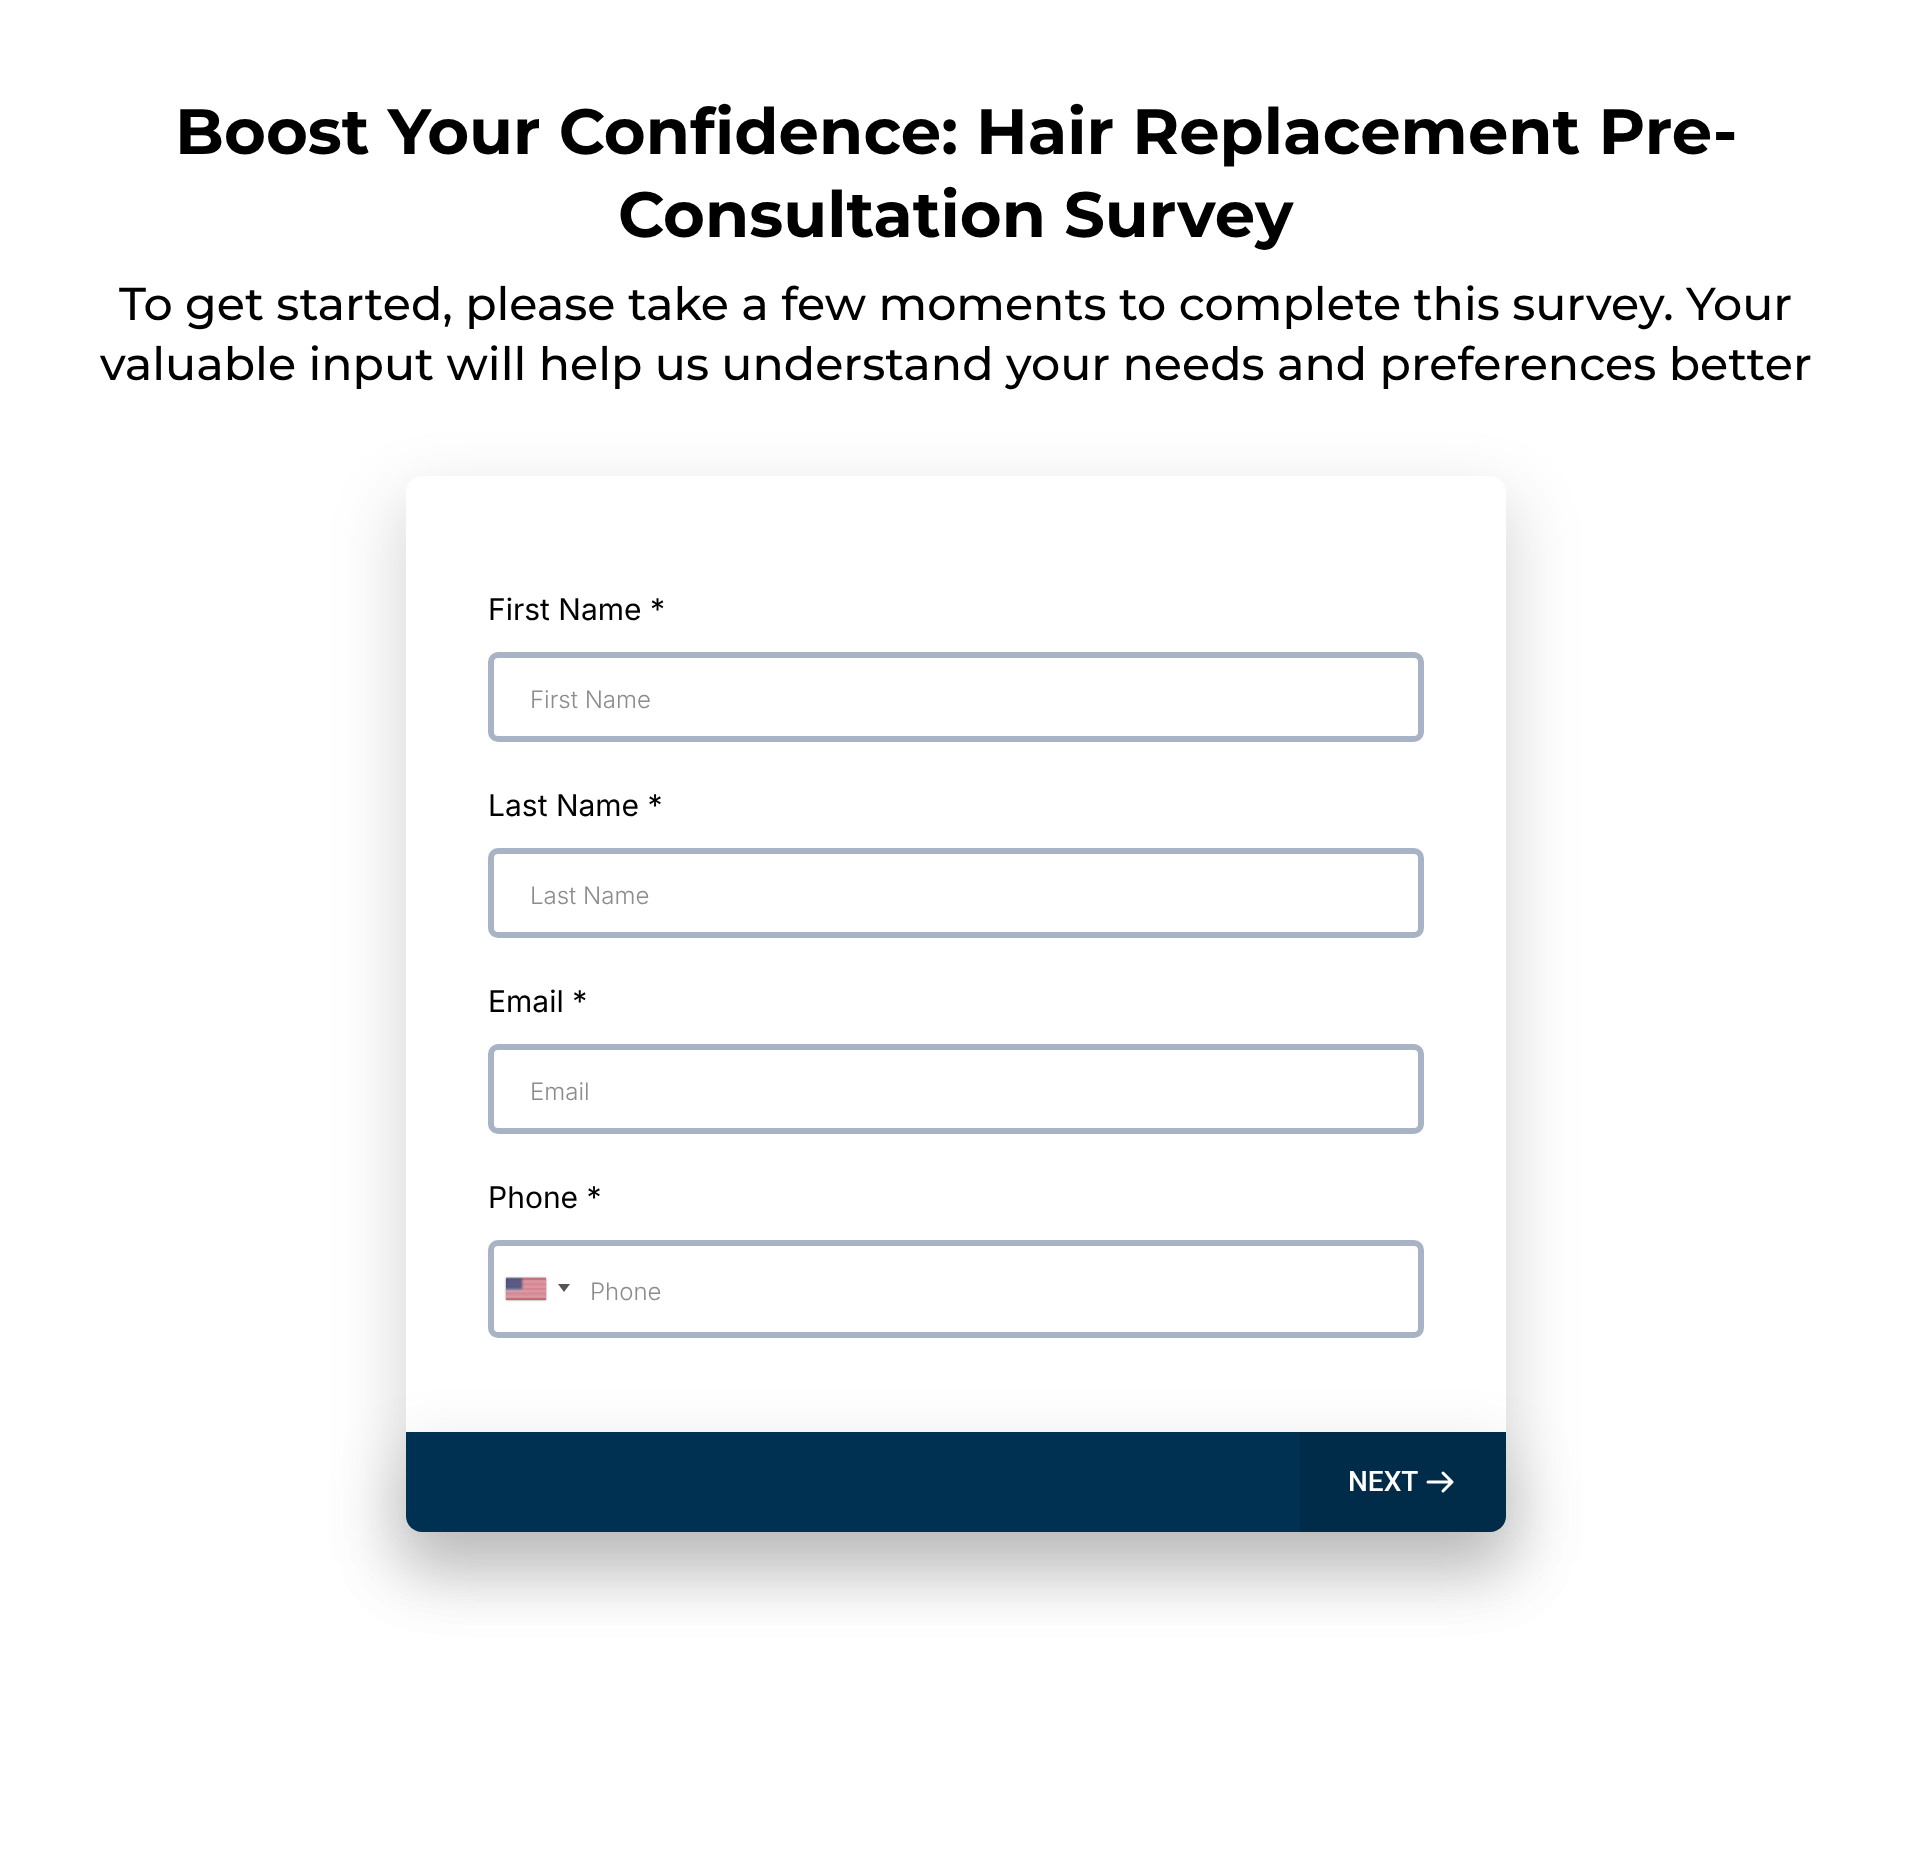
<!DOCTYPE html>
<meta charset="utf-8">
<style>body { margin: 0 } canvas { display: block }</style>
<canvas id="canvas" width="1911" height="1876"></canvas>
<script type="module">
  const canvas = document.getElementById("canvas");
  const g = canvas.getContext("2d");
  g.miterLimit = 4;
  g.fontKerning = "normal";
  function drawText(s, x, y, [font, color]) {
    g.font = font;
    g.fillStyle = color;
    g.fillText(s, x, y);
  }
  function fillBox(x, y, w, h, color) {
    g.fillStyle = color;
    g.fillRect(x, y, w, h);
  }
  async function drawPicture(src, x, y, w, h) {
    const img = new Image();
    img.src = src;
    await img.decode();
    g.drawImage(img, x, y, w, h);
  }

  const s1 = ["bold 64px Montserrat", "#000000"];
  const s2 = ["500 46px Montserrat", "#000000"];
  const s3 = ["30px Inter", "#000000"];
  const s4 = ["300 24px Inter", "#8C8C8C"];
  const s5 = ["500 28px Roboto", "#FFFFFF"];

  fillBox(0, 0, 1911, 1876, "#FFFFFF");
  drawText("Boost Your Confidence: Hair Replacement Pre-", 175, 154, s1);
  drawText("Consultation Survey", 618, 237, s1);
  drawText("To get started, please take a few moments to complete this survey. Your", 119, 320, s2);
  drawText("valuable input will help us understand your needs and preferences better", 100, 380, s2);
  g.fillStyle = "rgba(0, 0, 0, 0.15)";
  g.filter = "blur(33px)";
  g.beginPath();
  g.roundRect(398, 498, 1116, 1072, 24);
  g.fill();
  g.filter = "none";
  g.fillStyle = "#FFFFFF";
  g.beginPath();
  g.roundRect(406, 476, 1100, 956, [16, 16, 0, 0]);
  g.fill();
  drawText("First Name *", 488, 620, s3);
  g.beginPath();
  g.roundRect(491, 655, 930, 84, 7);
  g.strokeStyle = "#A9B3C6";
  g.lineWidth = 6;
  g.stroke();
  drawText("First Name", 530, 708, s4);
  drawText("Last Name *", 488, 816, s3);
  g.beginPath();
  g.roundRect(491, 851, 930, 84, 7);
  g.stroke();
  drawText("Last Name", 530, 904, s4);
  drawText("Email *", 488, 1012, s3);
  g.beginPath();
  g.roundRect(491, 1047, 930, 84, 7);
  g.stroke();
  drawText("Email", 530, 1100, s4);
  drawText("Phone *", 488, 1208, s3);
  g.beginPath();
  g.roundRect(491, 1243, 930, 92, 7);
  g.stroke();
  g.fillStyle = "#888888";
  g.filter = "blur(1px)";
  g.beginPath();
  g.rect(506, 1278, 40, 22);
  g.fill();
  g.filter = "none";
  await drawPicture("pic1.png", 506, 1277, 40, 23);
  g.fillStyle = "#555555";
  g.beginPath();
  g.moveTo(558, 1284);
  g.lineTo(570, 1284);
  g.lineTo(564, 1292);
  g.closePath();
  g.fill();
  drawText("Phone", 590, 1300, s4);
  g.fillStyle = "rgba(0, 0, 0, 0.15)";
  g.filter = "blur(33px)";
  g.beginPath();
  g.roundRect(398, 1454, 1116, 116, 24);
  g.fill();
  g.filter = "none";
  g.fillStyle = "#003153";
  g.beginPath();
  g.roundRect(406, 1432, 1100, 100, [0, 0, 16, 16]);
  g.fill();
  g.fillStyle = "rgba(0, 0, 0, 0.1)";
  g.beginPath();
  g.roundRect(1300, 1432, 206, 100, [0, 0, 16, 0]);
  g.fill();
  drawText("NEXT", 1348, 1491, s5);
  g.beginPath();
  g.moveTo(1428, 1482);
  g.lineTo(1452, 1482);
  g.moveTo(1452, 1482);
  g.lineTo(1443, 1473);
  g.moveTo(1452, 1482);
  g.lineTo(1443, 1491);
  g.strokeStyle = "#FFFFFF";
  g.lineWidth = 3;
  g.lineCap = "round";
  g.lineJoin = "round";
  g.stroke();
</script>
